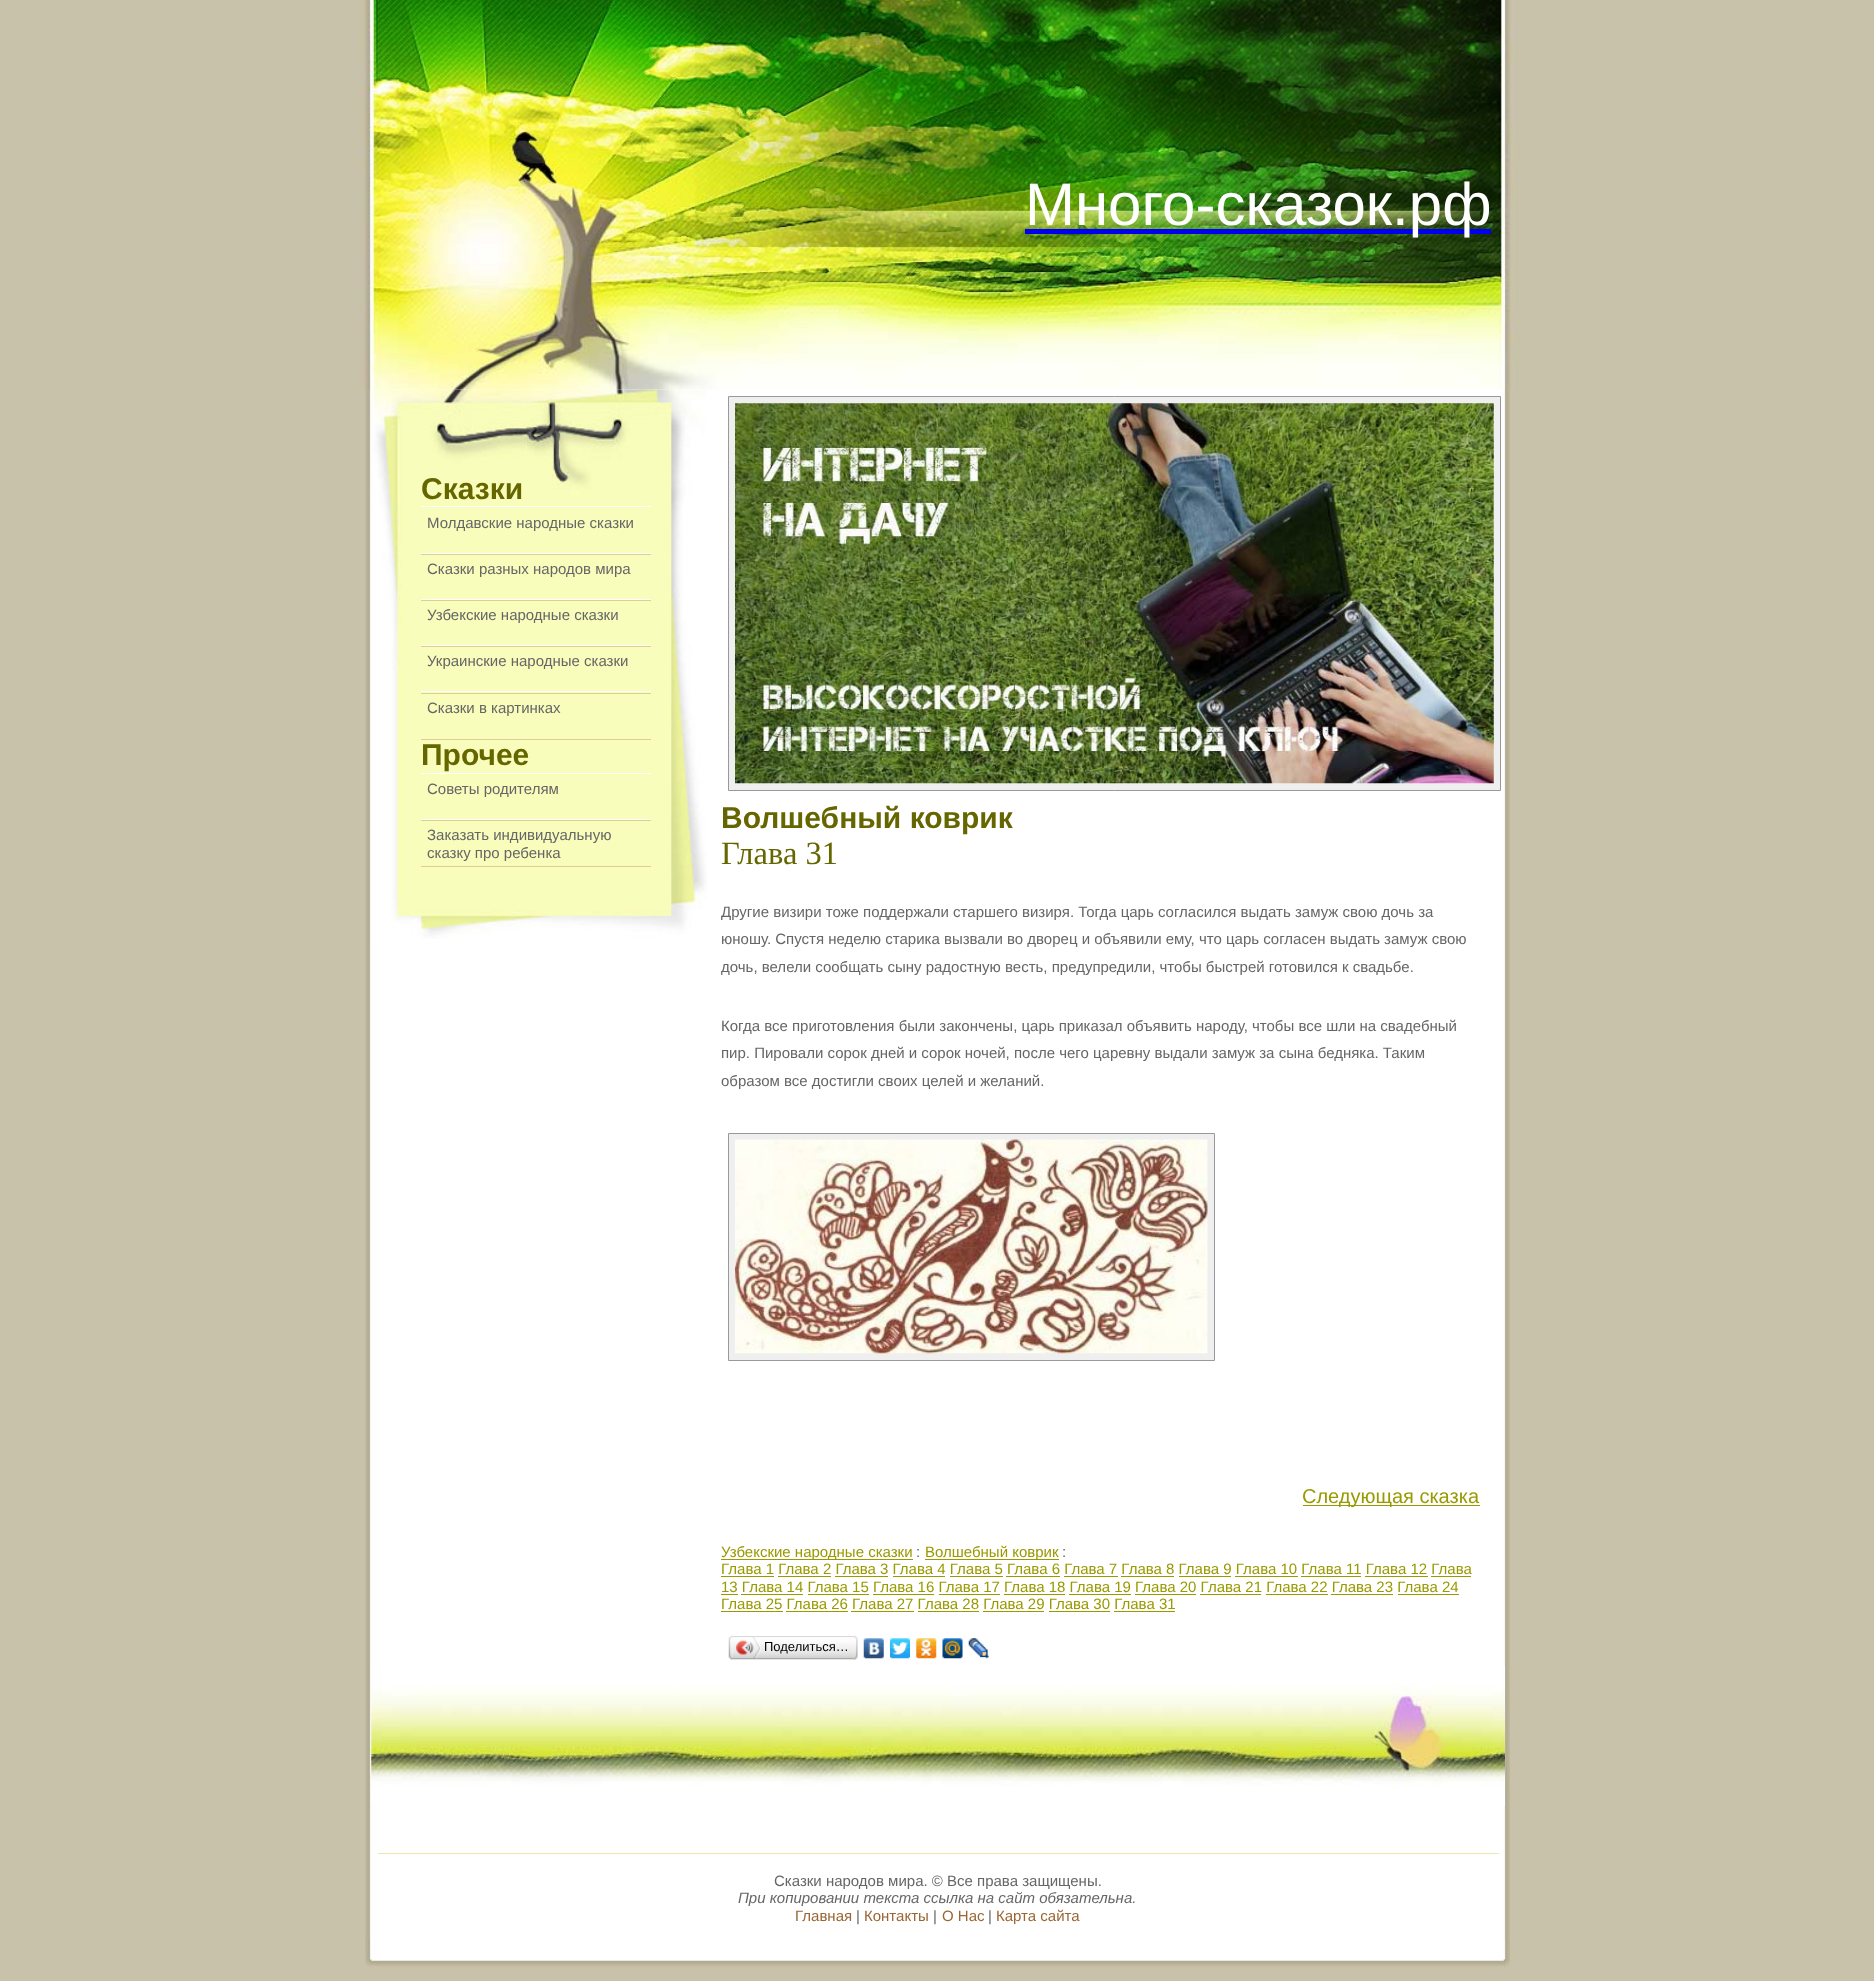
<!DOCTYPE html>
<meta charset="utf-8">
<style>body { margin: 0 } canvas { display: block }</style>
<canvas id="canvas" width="1874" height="1981"></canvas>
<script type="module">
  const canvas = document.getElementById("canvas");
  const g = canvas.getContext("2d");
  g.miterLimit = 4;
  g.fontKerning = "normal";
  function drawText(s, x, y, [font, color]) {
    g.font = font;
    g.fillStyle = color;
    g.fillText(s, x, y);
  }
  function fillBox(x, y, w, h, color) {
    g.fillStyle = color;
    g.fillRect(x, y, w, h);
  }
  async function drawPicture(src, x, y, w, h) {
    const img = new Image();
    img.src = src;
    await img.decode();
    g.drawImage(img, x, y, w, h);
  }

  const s1 = ["60px Liberation Sans", "#FFFFFF"];
  const s2 = ["bold 30px Liberation Sans", "#666600"];
  const s3 = ["15px Liberation Sans", "#666666"];
  const s4 = ["32.5px Liberation Serif", "#666600"];
  const s5 = ["20px Liberation Sans", "#999900"];
  const s6 = ["15px Liberation Sans", "#999900"];
  const s7 = ["13px Liberation Sans", "#000000"];
  const s8 = ["italic 15px Liberation Sans", "#666666"];
  const s9 = ["15px Liberation Sans", "#996633"];

  fillBox(0, 0, 1874, 1981, "#C8C2AA");
  await drawPicture("pic1.png", 365, 389, 1145, 1550);
  await drawPicture("pic2.png", 359, 0, 1159, 390);
  fillBox(1025, 229, 466, 5, "#0000EE");
  drawText("Много-сказок.рф", 1025, 225, s1);
  await drawPicture("pic3.png", 372, 389, 335, 550);
  drawText("Сказки", 421, 499, s2);
  fillBox(421, 506, 230, 1, "#FFFFFF");
  fillBox(421, 554, 230, 1, "#DFCD95");
  drawText("Молдавские народные сказки", 427, 528, s3);
  fillBox(421, 553, 230, 1, "#FFFFFF");
  fillBox(421, 600, 230, 1, "#DFCD95");
  drawText("Сказки разных народов мира", 427, 574, s3);
  fillBox(421, 599, 230, 1, "#FFFFFF");
  fillBox(421, 646, 230, 1, "#DFCD95");
  drawText("Узбекские народные сказки", 427, 620, s3);
  fillBox(421, 645, 230, 1, "#FFFFFF");
  fillBox(421, 693, 230, 1, "#DFCD95");
  drawText("Украинские народные сказки", 427, 666, s3);
  fillBox(421, 691, 230, 1, "#FFFFFF");
  fillBox(421, 739, 230, 1, "#DFCD95");
  drawText("Сказки в картинках", 427, 713, s3);
  drawText("Прочее", 421, 765, s2);
  fillBox(421, 773, 230, 1, "#FFFFFF");
  fillBox(421, 820, 230, 1, "#DFCD95");
  drawText("Советы родителям", 427, 794, s3);
  fillBox(421, 819, 230, 1, "#FFFFFF");
  fillBox(421, 866, 230, 1, "#DFCD95");
  drawText("Заказать индивидуальную", 427, 840, s3);
  drawText("сказку про ребенка", 427, 858, s3);
  g.fillStyle = "#EFEFEF";
  g.beginPath();
  g.rect(728.5, 396.5, 772, 394);
  g.fill();
  g.strokeStyle = "#999999";
  g.stroke();
  await drawPicture("pic4.png", 735, 403, 759, 381);
  drawText("Волшебный коврик", 721, 828, s2);
  drawText("Глава 31", 721, 864, s4);
  drawText("Другие визири тоже поддержали старшего визиря. Тогда царь согласился выдать замуж свою дочь за", 721, 917, s3);
  drawText("юношу. Спустя неделю старика вызвали во дворец и объявили ему, что царь согласен выдать замуж свою", 721, 944, s3);
  drawText("дочь, велели сообщать сыну радостную весть, предупредили, чтобы быстрей готовился к свадьбе.", 721, 972, s3);
  drawText("Когда все приготовления были закончены, царь приказал объявить народу, чтобы все шли на свадебный", 721, 1031, s3);
  drawText("пир. Пировали сорок дней и сорок ночей, после чего царевну выдали замуж за сына бедняка. Таким", 721, 1058, s3);
  drawText("образом все достигли своих целей и желаний.", 721, 1086, s3);
  g.fillStyle = "#EFEFEF";
  g.beginPath();
  g.rect(728.5, 1133.5, 486, 227);
  g.fill();
  g.stroke();
  await drawPicture("pic5.png", 735, 1139, 473, 215);
  fillBox(1303, 1505, 177, 1, "#999900");
  drawText("Следующая сказка", 1302, 1503, s5);
  fillBox(721, 1559, 192, 1, "#999900");
  drawText("Узбекские народные сказки", 721, 1557, s6);
  drawText(":", 916, 1557, s3);
  fillBox(925, 1559, 134, 1, "#999900");
  drawText("Волшебный коврик", 925, 1557, s6);
  drawText(":", 1062, 1557, s3);
  drawText("Глава 1 Глава 2 Глава 3 Глава 4 Глава 5 Глава 6 Глава 7 Глава 8 Глава 9 Глава 10 Глава 11 Глава 12 Глава", 721, 1574, s6);
  fillBox(721, 1576, 53, 1, "#999900");
  fillBox(778, 1576, 53, 1, "#999900");
  fillBox(835, 1576, 53, 1, "#999900");
  fillBox(893, 1576, 52, 1, "#999900");
  fillBox(950, 1576, 53, 1, "#999900");
  fillBox(1006, 1576, 54, 1, "#999900");
  fillBox(1064, 1576, 54, 1, "#999900");
  fillBox(1121, 1576, 53, 1, "#999900");
  fillBox(1179, 1576, 52, 1, "#999900");
  fillBox(1235, 1576, 63, 1, "#999900");
  fillBox(1301, 1576, 60, 1, "#999900");
  fillBox(1365, 1576, 63, 1, "#999900");
  drawText("13 Глава 14 Глава 15 Глава 16 Глава 17 Глава 18 Глава 19 Глава 20 Глава 21 Глава 22 Глава 23 Глава 24", 721, 1592, s6);
  fillBox(1431, 1576, 40, 1, "#999900");
  fillBox(721, 1594, 17, 1, "#999900");
  fillBox(741, 1594, 62, 1, "#999900");
  fillBox(808, 1594, 61, 1, "#999900");
  fillBox(873, 1594, 61, 1, "#999900");
  fillBox(939, 1594, 61, 1, "#999900");
  fillBox(1004, 1594, 61, 1, "#999900");
  fillBox(1069, 1594, 62, 1, "#999900");
  fillBox(1135, 1594, 61, 1, "#999900");
  fillBox(1200, 1594, 61, 1, "#999900");
  fillBox(1266, 1594, 62, 1, "#999900");
  fillBox(1331, 1594, 62, 1, "#999900");
  fillBox(1398, 1594, 61, 1, "#999900");
  drawText("Глава 25 Глава 26 Глава 27 Глава 28 Глава 29 Глава 30 Глава 31", 721, 1609, s6);
  fillBox(721, 1611, 62, 1, "#999900");
  fillBox(786, 1611, 62, 1, "#999900");
  fillBox(851, 1611, 63, 1, "#999900");
  fillBox(918, 1611, 61, 1, "#999900");
  fillBox(983, 1611, 61, 1, "#999900");
  fillBox(1049, 1611, 61, 1, "#999900");
  fillBox(1114, 1611, 61, 1, "#999900");
  await drawPicture("pic6.png", 732, 1636, 122, 24);
  await drawPicture("pic7.png", 728, 1635, 5, 25);
  await drawPicture("pic8.png", 736, 1637, 25, 22);
  drawText("Поделиться…", 764, 1651, s7);
  await drawPicture("pic9.png", 853, 1635, 5, 25);
  await drawPicture("pic10.png", 863, 1638, 21, 21);
  await drawPicture("pic11.png", 890, 1638, 20, 21);
  await drawPicture("pic12.png", 916, 1638, 21, 21);
  await drawPicture("pic13.png", 942, 1638, 21, 21);
  await drawPicture("pic14.png", 968, 1638, 21, 21);
  await drawPicture("pic15.png", 371, 1666, 1134, 140);
  await drawPicture("pic16.png", 365, 1939, 1145, 38);
  fillBox(378, 1853, 1121, 1, "#EBE6B4");
  drawText("Сказки народов мира. © Все права защищены.", 774, 1886, s3);
  drawText("При копировании текста ссылка на сайт обязательна.", 738, 1903, s8);
  drawText("Главная", 795, 1921, s9);
  drawText("|", 856, 1921, s3);
  drawText("Контакты", 864, 1921, s9);
  drawText("|", 933, 1921, s3);
  drawText("О Нас", 942, 1921, s9);
  drawText("|", 988, 1921, s3);
  drawText("Карта сайта", 996, 1921, s9);
</script>
